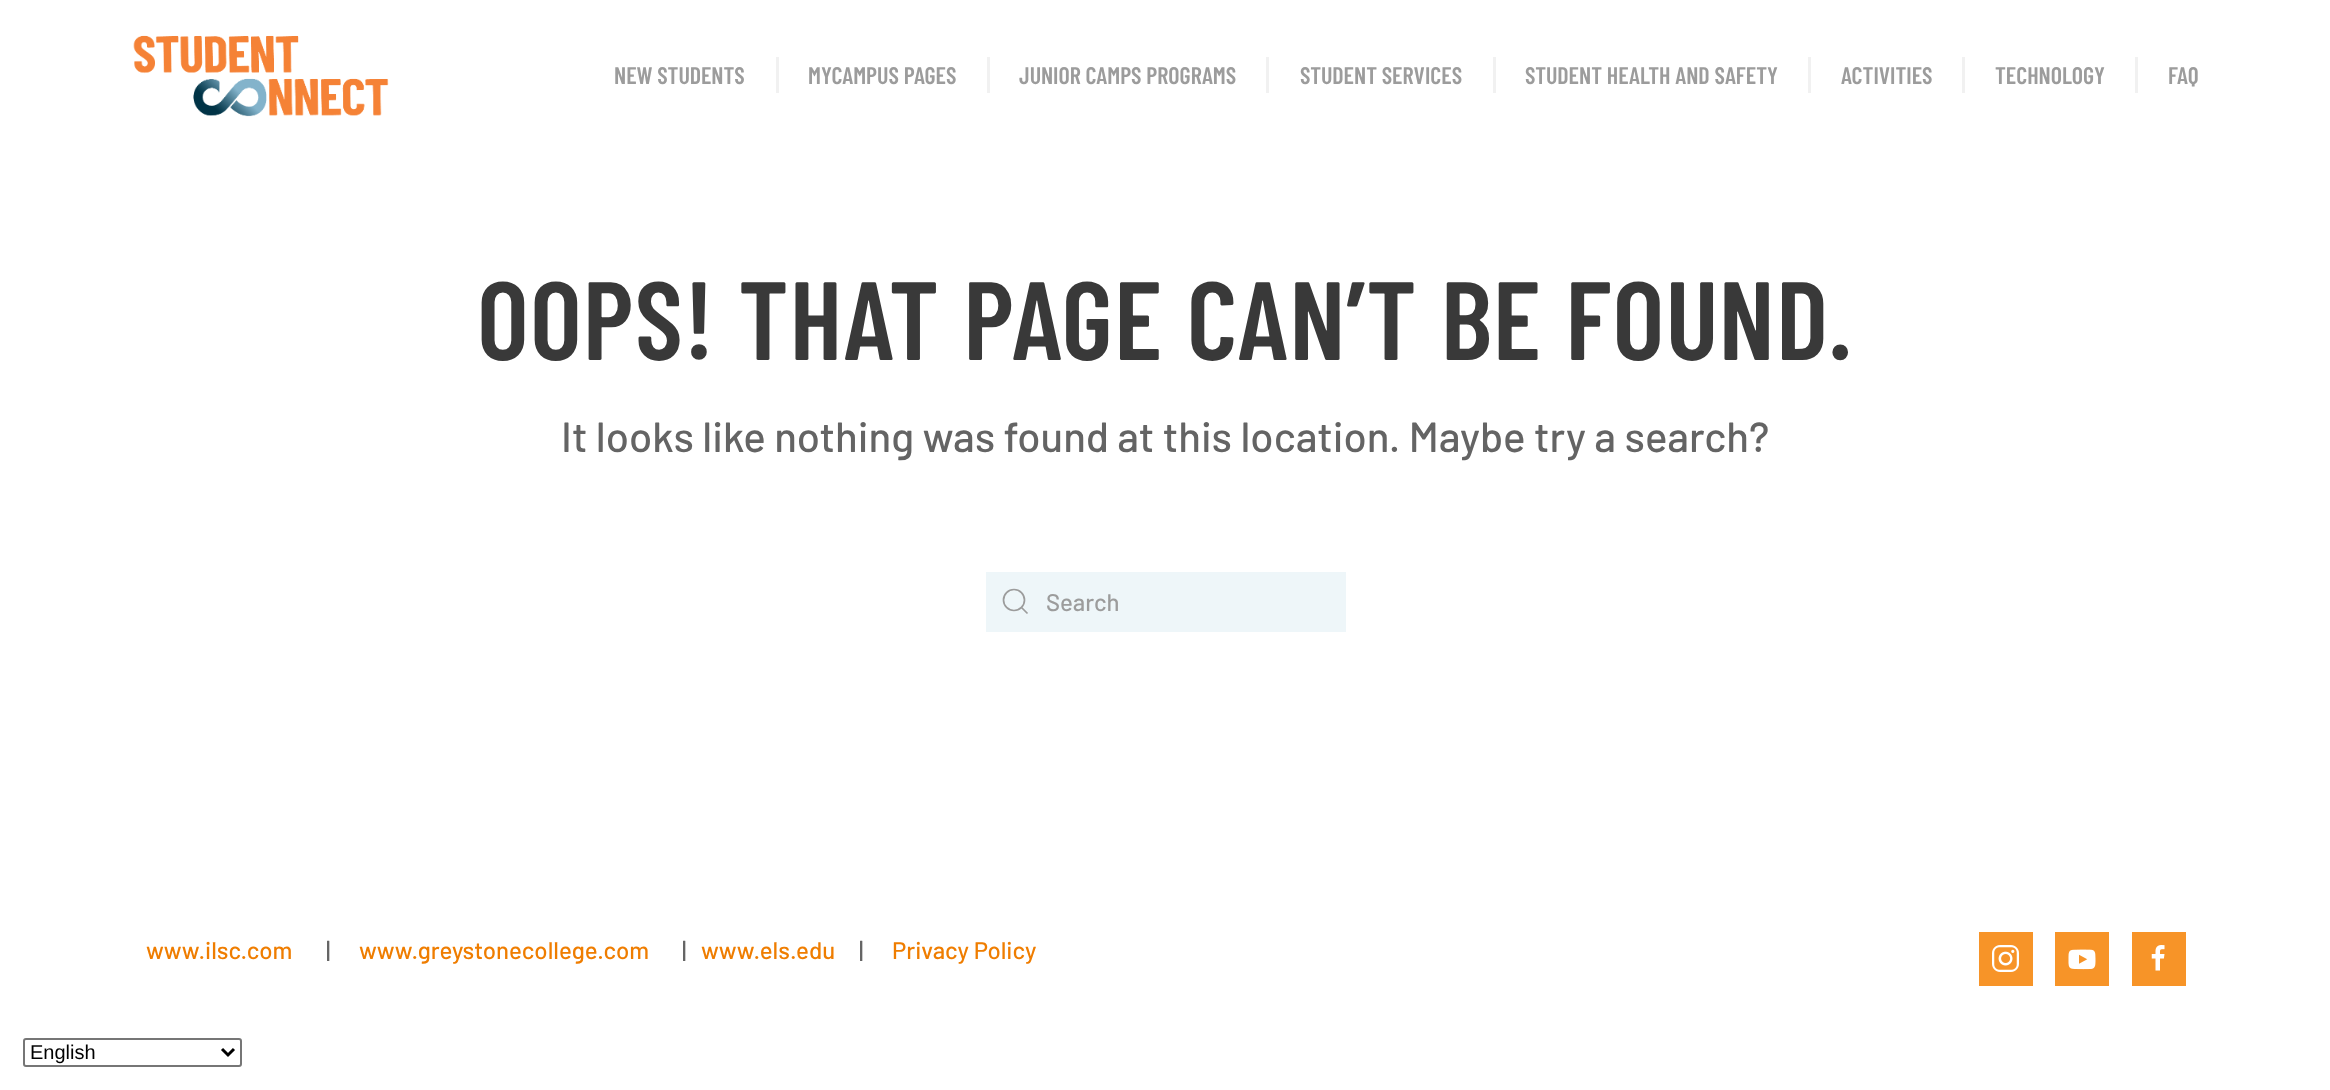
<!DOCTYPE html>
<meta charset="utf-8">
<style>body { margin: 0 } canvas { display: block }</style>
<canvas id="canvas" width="2330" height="1090"></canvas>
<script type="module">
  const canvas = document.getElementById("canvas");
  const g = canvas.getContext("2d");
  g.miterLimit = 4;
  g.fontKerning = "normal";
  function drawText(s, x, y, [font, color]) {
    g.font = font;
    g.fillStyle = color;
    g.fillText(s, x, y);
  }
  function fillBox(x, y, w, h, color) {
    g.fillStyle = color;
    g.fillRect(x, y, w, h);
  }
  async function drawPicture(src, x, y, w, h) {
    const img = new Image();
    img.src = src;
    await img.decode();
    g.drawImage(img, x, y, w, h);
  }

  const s1 = ["600 24px Barlow Condensed", "#9C9C9C"];
  const s2 = ["600 111px Barlow Condensed", "#393939"];
  const s3 = ["500 42px Barlow", "#646464"];
  const s4 = ["500 24px Barlow", "#9C9C9C"];
  const s5 = ["500 24px Barlow", "#EF7D00"];
  const s6 = ["500 24px Barlow", "#646464"];
  const s7 = ["20px Liberation Sans", "#000000"];

  fillBox(0, 0, 2330, 1090, "#FFFFFF");
  await drawPicture("pic1.png", 133, 35, 256, 82);
  drawText("NEW STUDENTS", 614, 84, s1);
  fillBox(776, 57, 3, 36, "#F1F1F1");
  drawText("MYCAMPUS PAGES", 808, 84, s1);
  fillBox(987, 57, 3, 36, "#F1F1F1");
  drawText("JUNIOR CAMPS PROGRAMS", 1019, 84, s1);
  fillBox(1266, 57, 3, 36, "#F1F1F1");
  drawText("STUDENT SERVICES", 1300, 84, s1);
  fillBox(1493, 57, 3, 36, "#F1F1F1");
  drawText("STUDENT HEALTH AND SAFETY", 1525, 84, s1);
  fillBox(1808, 57, 3, 36, "#F1F1F1");
  drawText("ACTIVITIES", 1841, 84, s1);
  fillBox(1962, 57, 3, 36, "#F1F1F1");
  drawText("TECHNOLOGY", 1995, 84, s1);
  fillBox(2135, 57, 3, 36, "#F1F1F1");
  drawText("FAQ", 2168, 84, s1);
  g.letterSpacing = "1.1px";
  drawText("OOPS! THAT PAGE CAN’T BE FOUND.", 477, 360, s2);
  g.letterSpacing = "0px";
  drawText("It looks like nothing was found at this location. Maybe try a search?", 561, 452, s3);
  fillBox(986, 572, 360, 60, "#EEF6F9");
  g.beginPath();
  g.arc(1014, 600, 10.5, 0, Math.PI * 2);
  g.strokeStyle = "#9C9C9C";
  g.lineWidth = 1.7;
  g.stroke();
  g.beginPath();
  g.moveTo(1021.5, 607.5);
  g.lineTo(1027.5, 613.5);
  g.closePath();
  g.stroke();
  drawText("Search", 1046, 611, s4);
  drawText("www.ilsc.com", 146, 959, s5);
  drawText("|", 326, 959, s6);
  drawText("www.greystonecollege.com", 359, 959, s5);
  drawText("|", 682, 959, s6);
  drawText("www.els.edu", 701, 959, s5);
  drawText("|", 859, 959, s6);
  drawText("Privacy Policy", 892, 959, s5);
  fillBox(1979, 932, 54, 54, "#F79428");
  await drawPicture("pic2.png", 1992, 945, 27, 27);
  fillBox(2055, 932, 54, 54, "#F79428");
  await drawPicture("pic3.png", 2068, 949, 28, 21);
  fillBox(2132, 932, 54, 54, "#F79428");
  await drawPicture("pic4.png", 2151, 945, 14, 26);
  g.beginPath();
  g.roundRect(24, 1039, 217, 27, 2);
  g.strokeStyle = "#767676";
  g.lineWidth = 2;
  g.stroke();
  g.beginPath();
  g.moveTo(222, 1049);
  g.lineTo(228, 1055);
  g.lineTo(234, 1049);
  g.strokeStyle = "#000000";
  g.lineWidth = 3;
  g.stroke();
  drawText("English", 30, 1059, s7);
</script>
